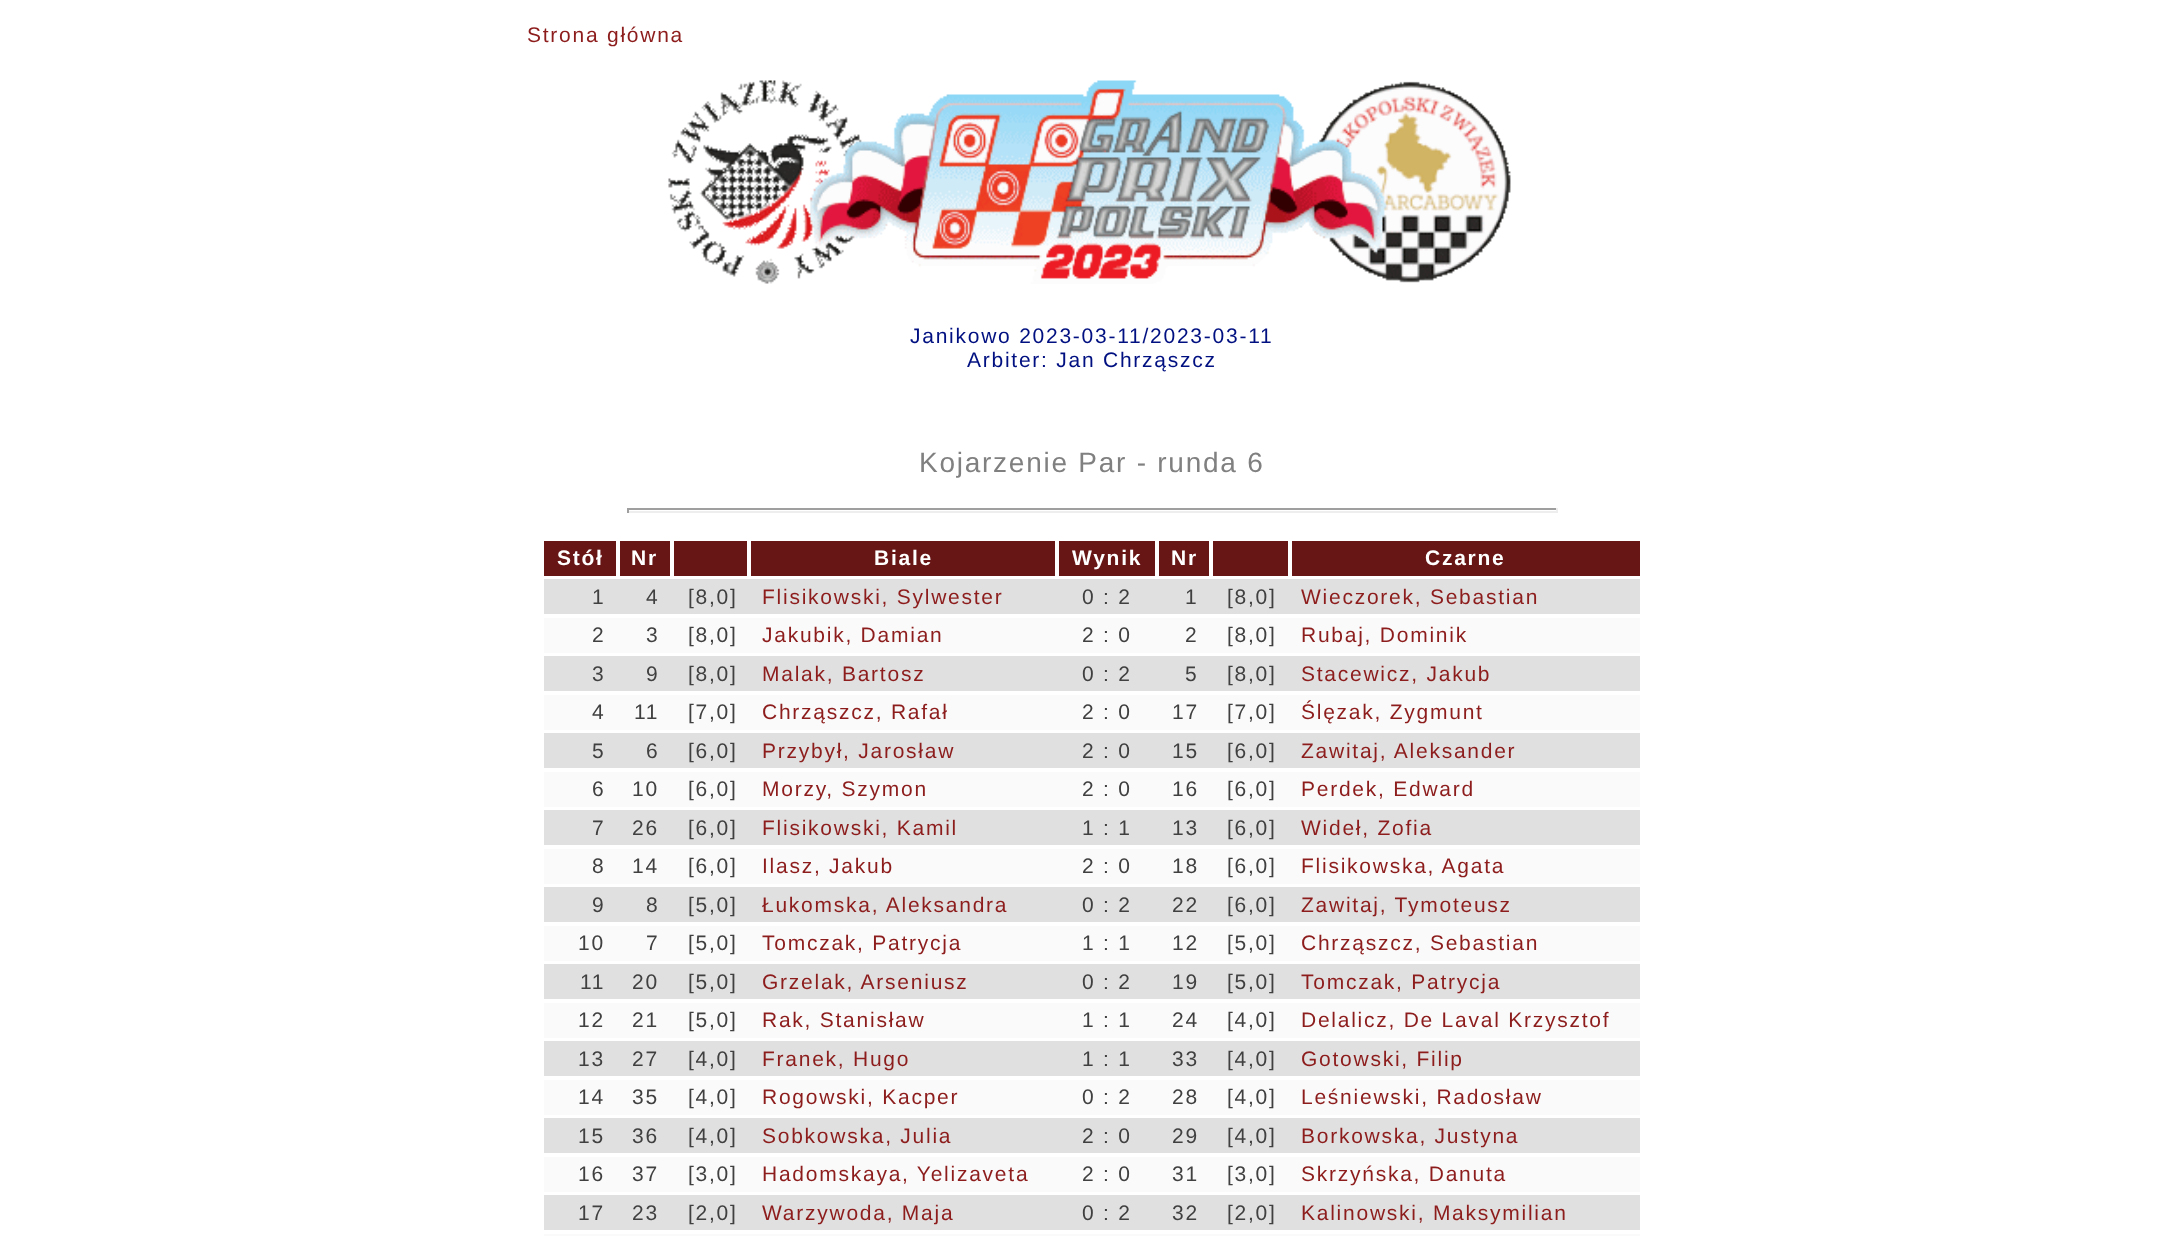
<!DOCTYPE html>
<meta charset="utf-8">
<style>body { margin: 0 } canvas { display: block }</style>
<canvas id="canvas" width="2184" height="1236"></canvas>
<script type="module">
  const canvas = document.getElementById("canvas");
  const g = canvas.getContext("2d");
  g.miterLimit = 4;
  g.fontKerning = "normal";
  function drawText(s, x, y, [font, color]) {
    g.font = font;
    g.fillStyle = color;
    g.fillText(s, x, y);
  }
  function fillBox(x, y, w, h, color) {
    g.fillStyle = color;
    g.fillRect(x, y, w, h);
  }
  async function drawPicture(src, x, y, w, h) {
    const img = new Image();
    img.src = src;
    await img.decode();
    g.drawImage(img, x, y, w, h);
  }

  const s1 = ["21px Liberation Sans", "#8D1D1D"];
  const s2 = ["21px Liberation Sans", "#001080"];
  const s3 = ["28px Liberation Sans", "#808080"];
  const s4 = ["bold 21px Liberation Sans", "#FFFFFF"];
  const s5 = ["21px Liberation Sans", "#404040"];

  fillBox(0, 0, 2184, 1236, "#FFFFFF");
  g.letterSpacing = "1.75px";
  drawText("Strona główna", 527, 42, s1);
  await drawPicture("pic1.png", 668, 80, 843, 204);
  drawText("Janikowo 2023-03-11/2023-03-11", 910, 343, s2);
  drawText("Arbiter: Jan Chrząszcz", 967, 367, s2);
  drawText("Kojarzenie Par - runda 6", 919, 472, s3);
  fillBox(627, 508, 931, 2, "#9F9F9F");
  fillBox(1556, 508, 2, 5, "#EEEEEE");
  fillBox(627, 511, 931, 2, "#EEEEEE");
  fillBox(627, 508, 2, 5, "#9F9F9F");
  fillBox(544, 541, 72, 35, "#671515");
  drawText("Stół", 557, 565, s4);
  fillBox(620, 541, 50, 35, "#671515");
  drawText("Nr", 631, 565, s4);
  fillBox(674, 541, 73, 35, "#671515");
  fillBox(751, 541, 304, 35, "#671515");
  drawText("Biale", 874, 565, s4);
  fillBox(1059, 541, 96, 35, "#671515");
  drawText("Wynik", 1072, 565, s4);
  fillBox(1159, 541, 50, 35, "#671515");
  drawText("Nr", 1171, 565, s4);
  fillBox(1213, 541, 75, 35, "#671515");
  fillBox(1292, 541, 348, 35, "#671515");
  drawText("Czarne", 1425, 565, s4);
  fillBox(544, 579, 1096, 35, "#E0E0E0");
  drawText("1", 592, 604, s5);
  drawText("4", 646, 604, s5);
  drawText("[8,0]", 688, 604, s5);
  drawText("Flisikowski, Sylwester", 762, 604, s1);
  drawText("0 : 2", 1082, 604, s5);
  drawText("1", 1185, 604, s5);
  drawText("[8,0]", 1227, 604, s5);
  drawText("Wieczorek, Sebastian", 1301, 604, s1);
  fillBox(544, 618, 1096, 35, "#FAFAFA");
  drawText("2", 592, 642, s5);
  drawText("3", 646, 642, s5);
  drawText("[8,0]", 688, 642, s5);
  drawText("Jakubik, Damian", 762, 642, s1);
  drawText("2 : 0", 1082, 642, s5);
  drawText("2", 1185, 642, s5);
  drawText("[8,0]", 1227, 642, s5);
  drawText("Rubaj, Dominik", 1301, 642, s1);
  fillBox(544, 656, 1096, 35, "#E0E0E0");
  drawText("3", 592, 681, s5);
  drawText("9", 646, 681, s5);
  drawText("[8,0]", 688, 681, s5);
  drawText("Malak, Bartosz", 762, 681, s1);
  drawText("0 : 2", 1082, 681, s5);
  drawText("5", 1185, 681, s5);
  drawText("[8,0]", 1227, 681, s5);
  drawText("Stacewicz, Jakub", 1301, 681, s1);
  fillBox(544, 695, 1096, 35, "#FAFAFA");
  drawText("4", 592, 719, s5);
  drawText("11", 634, 719, s5);
  drawText("[7,0]", 688, 719, s5);
  drawText("Chrząszcz, Rafał", 762, 719, s1);
  drawText("2 : 0", 1082, 719, s5);
  drawText("17", 1172, 719, s5);
  drawText("[7,0]", 1227, 719, s5);
  drawText("Ślęzak, Zygmunt", 1301, 719, s1);
  fillBox(544, 733, 1096, 35, "#E0E0E0");
  drawText("5", 592, 758, s5);
  drawText("6", 646, 758, s5);
  drawText("[6,0]", 688, 758, s5);
  drawText("Przybył, Jarosław", 762, 758, s1);
  drawText("2 : 0", 1082, 758, s5);
  drawText("15", 1172, 758, s5);
  drawText("[6,0]", 1227, 758, s5);
  drawText("Zawitaj, Aleksander", 1301, 758, s1);
  fillBox(544, 772, 1096, 35, "#FAFAFA");
  drawText("6", 592, 796, s5);
  drawText("10", 632, 796, s5);
  drawText("[6,0]", 688, 796, s5);
  drawText("Morzy, Szymon", 762, 796, s1);
  drawText("2 : 0", 1082, 796, s5);
  drawText("16", 1172, 796, s5);
  drawText("[6,0]", 1227, 796, s5);
  drawText("Perdek, Edward", 1301, 796, s1);
  fillBox(544, 810, 1096, 35, "#E0E0E0");
  drawText("7", 592, 835, s5);
  drawText("26", 632, 835, s5);
  drawText("[6,0]", 688, 835, s5);
  drawText("Flisikowski, Kamil", 762, 835, s1);
  drawText("1 : 1", 1082, 835, s5);
  drawText("13", 1172, 835, s5);
  drawText("[6,0]", 1227, 835, s5);
  drawText("Wideł, Zofia", 1301, 835, s1);
  fillBox(544, 849, 1096, 35, "#FAFAFA");
  drawText("8", 592, 873, s5);
  drawText("14", 632, 873, s5);
  drawText("[6,0]", 688, 873, s5);
  drawText("Ilasz, Jakub", 762, 873, s1);
  drawText("2 : 0", 1082, 873, s5);
  drawText("18", 1172, 873, s5);
  drawText("[6,0]", 1227, 873, s5);
  drawText("Flisikowska, Agata", 1301, 873, s1);
  fillBox(544, 887, 1096, 35, "#E0E0E0");
  drawText("9", 592, 912, s5);
  drawText("8", 646, 912, s5);
  drawText("[5,0]", 688, 912, s5);
  drawText("Łukomska, Aleksandra", 762, 912, s1);
  drawText("0 : 2", 1082, 912, s5);
  drawText("22", 1172, 912, s5);
  drawText("[6,0]", 1227, 912, s5);
  drawText("Zawitaj, Tymoteusz", 1301, 912, s1);
  fillBox(544, 926, 1096, 35, "#FAFAFA");
  drawText("10", 578, 950, s5);
  drawText("7", 646, 950, s5);
  drawText("[5,0]", 688, 950, s5);
  drawText("Tomczak, Patrycja", 762, 950, s1);
  drawText("1 : 1", 1082, 950, s5);
  drawText("12", 1172, 950, s5);
  drawText("[5,0]", 1227, 950, s5);
  drawText("Chrząszcz, Sebastian", 1301, 950, s1);
  fillBox(544, 964, 1096, 35, "#E0E0E0");
  drawText("11", 580, 989, s5);
  drawText("20", 632, 989, s5);
  drawText("[5,0]", 688, 989, s5);
  drawText("Grzelak, Arseniusz", 762, 989, s1);
  drawText("0 : 2", 1082, 989, s5);
  drawText("19", 1172, 989, s5);
  drawText("[5,0]", 1227, 989, s5);
  drawText("Tomczak, Patrycja", 1301, 989, s1);
  fillBox(544, 1003, 1096, 35, "#FAFAFA");
  drawText("12", 578, 1027, s5);
  drawText("21", 632, 1027, s5);
  drawText("[5,0]", 688, 1027, s5);
  drawText("Rak, Stanisław", 762, 1027, s1);
  drawText("1 : 1", 1082, 1027, s5);
  drawText("24", 1172, 1027, s5);
  drawText("[4,0]", 1227, 1027, s5);
  drawText("Delalicz, De Laval Krzysztof", 1301, 1027, s1);
  fillBox(544, 1041, 1096, 35, "#E0E0E0");
  drawText("13", 578, 1066, s5);
  drawText("27", 632, 1066, s5);
  drawText("[4,0]", 688, 1066, s5);
  drawText("Franek, Hugo", 762, 1066, s1);
  drawText("1 : 1", 1082, 1066, s5);
  drawText("33", 1172, 1066, s5);
  drawText("[4,0]", 1227, 1066, s5);
  drawText("Gotowski, Filip", 1301, 1066, s1);
  fillBox(544, 1080, 1096, 35, "#FAFAFA");
  drawText("14", 578, 1104, s5);
  drawText("35", 632, 1104, s5);
  drawText("[4,0]", 688, 1104, s5);
  drawText("Rogowski, Kacper", 762, 1104, s1);
  drawText("0 : 2", 1082, 1104, s5);
  drawText("28", 1172, 1104, s5);
  drawText("[4,0]", 1227, 1104, s5);
  drawText("Leśniewski, Radosław", 1301, 1104, s1);
  fillBox(544, 1118, 1096, 35, "#E0E0E0");
  drawText("15", 578, 1143, s5);
  drawText("36", 632, 1143, s5);
  drawText("[4,0]", 688, 1143, s5);
  drawText("Sobkowska, Julia", 762, 1143, s1);
  drawText("2 : 0", 1082, 1143, s5);
  drawText("29", 1172, 1143, s5);
  drawText("[4,0]", 1227, 1143, s5);
  drawText("Borkowska, Justyna", 1301, 1143, s1);
  fillBox(544, 1157, 1096, 35, "#FAFAFA");
  drawText("16", 578, 1181, s5);
  drawText("37", 632, 1181, s5);
  drawText("[3,0]", 688, 1181, s5);
  drawText("Hadomskaya, Yelizaveta", 762, 1181, s1);
  drawText("2 : 0", 1082, 1181, s5);
  drawText("31", 1172, 1181, s5);
  drawText("[3,0]", 1227, 1181, s5);
  drawText("Skrzyńska, Danuta", 1301, 1181, s1);
  fillBox(544, 1195, 1096, 35, "#E0E0E0");
  drawText("17", 578, 1220, s5);
  drawText("23", 632, 1220, s5);
  drawText("[2,0]", 688, 1220, s5);
  drawText("Warzywoda, Maja", 762, 1220, s1);
  drawText("0 : 2", 1082, 1220, s5);
  drawText("32", 1172, 1220, s5);
  drawText("[2,0]", 1227, 1220, s5);
  drawText("Kalinowski, Maksymilian", 1301, 1220, s1);
  fillBox(544, 1234, 1096, 2, "#FAFAFA");
</script>
